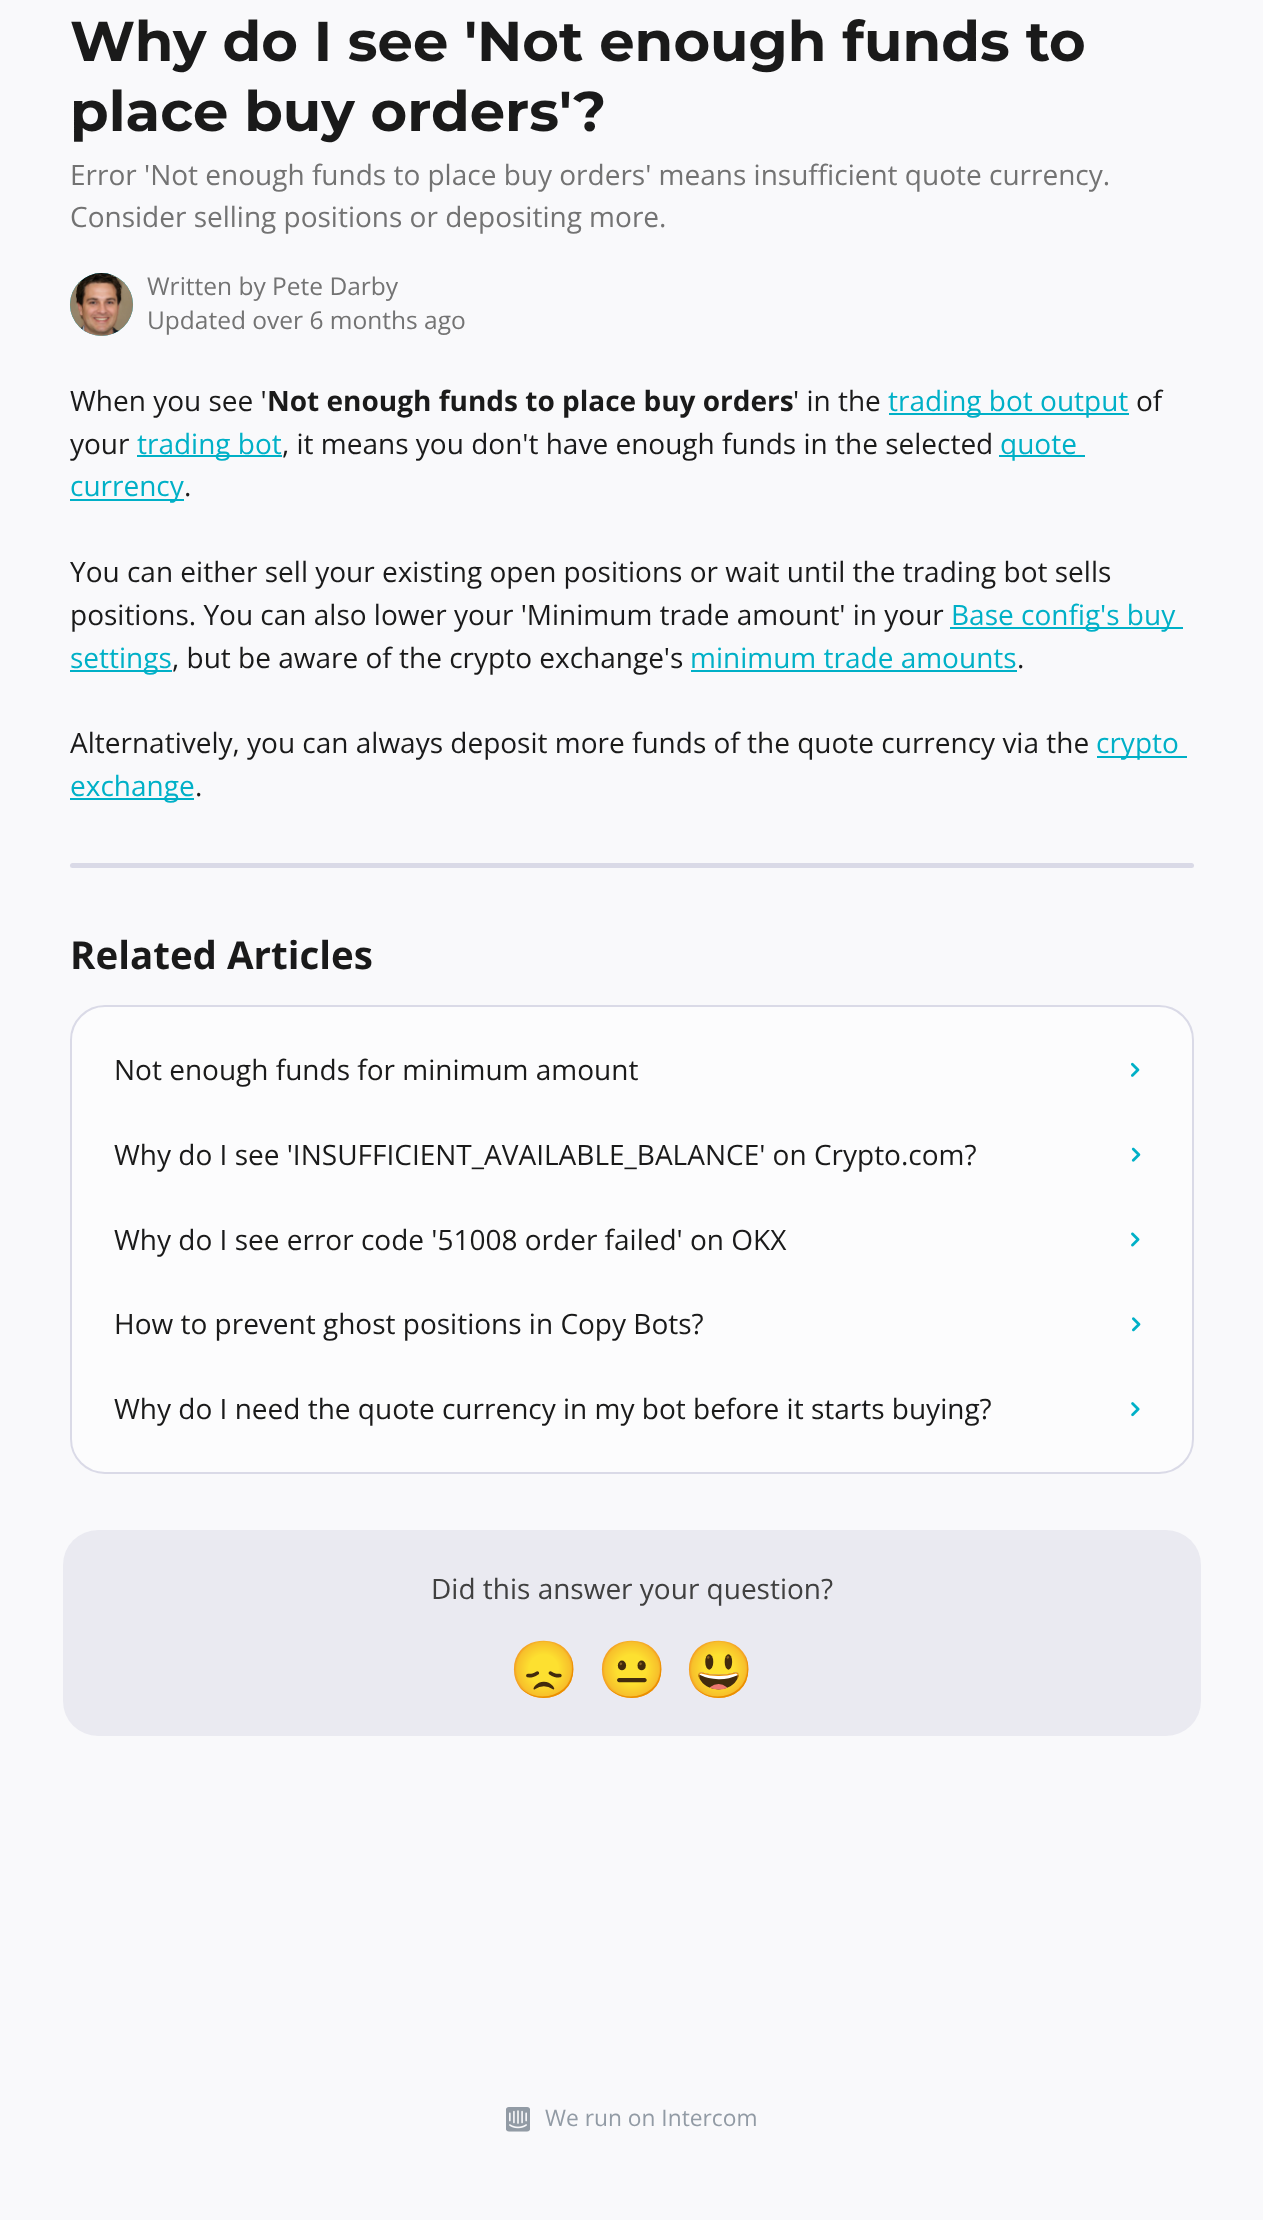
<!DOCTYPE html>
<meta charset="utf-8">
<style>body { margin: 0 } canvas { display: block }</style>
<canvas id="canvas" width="1263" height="2220"></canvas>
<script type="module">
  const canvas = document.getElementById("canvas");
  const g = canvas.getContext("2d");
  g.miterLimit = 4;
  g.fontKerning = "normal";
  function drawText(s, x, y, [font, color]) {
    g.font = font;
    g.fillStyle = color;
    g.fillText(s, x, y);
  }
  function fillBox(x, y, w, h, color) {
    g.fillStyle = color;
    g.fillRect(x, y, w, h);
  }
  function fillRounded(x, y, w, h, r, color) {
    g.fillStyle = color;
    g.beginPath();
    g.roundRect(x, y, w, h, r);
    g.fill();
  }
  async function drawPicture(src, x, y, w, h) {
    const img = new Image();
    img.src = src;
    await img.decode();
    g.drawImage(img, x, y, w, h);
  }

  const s1 = ["bold 56px Montserrat", "#1A1A1A"];
  const s2 = ["28px Open Sans", "#737373"];
  const s3 = ["24.5px Open Sans", "#737373"];
  const s4 = ["28px Open Sans", "#1A1A1A"];
  const s5 = ["bold 28px Open Sans", "#1A1A1A"];
  const s6 = ["28px Open Sans", "#00B0C7"];
  const s7 = ["bold 38.5px Open Sans", "#1A1A1A"];
  const s8 = ["28px Open Sans", "#404040"];
  const s9 = ["56px Noto Color Emoji", "#404040"];
  const s10 = ["22.75px Open Sans", "#929BA5"];

  fillBox(0, 0, 1263, 2220, "#F9F9FB");
  drawText("Why do I see 'Not enough funds to", 70, 61, s1);
  drawText("place buy orders'?", 70, 131, s1);
  drawText("Error 'Not enough funds to place buy orders' means insufficient quote currency.", 70, 185, s2);
  drawText("Consider selling positions or depositing more.", 70, 227, s2);
  g.fillStyle = "#00B0C7";
  g.beginPath();
  g.arc(101.5, 304.5, 31.5, 0, Math.PI * 2);
  g.fill();
  await drawPicture("pic1.png", 70, 273, 63, 63);
  drawText("Written by Pete Darby", 147, 295, s3);
  drawText("Updated over 6 months ago", 147, 329, s3);
  drawText("When you see '", 70, 411, s4);
  drawText("Not enough funds to place buy orders", 267, 411, s5);
  drawText("' in the", 793, 411, s4);
  fillBox(889, 413, 240, 2, "#00B0C7");
  drawText("trading bot output", 888, 411, s6);
  drawText("of", 1136, 411, s4);
  drawText("your", 70, 454, s4);
  fillBox(137, 455, 145, 2, "#00B0C7");
  drawText("trading bot", 137, 454, s6);
  drawText(", it means you don't have enough funds in the selected", 282, 454, s4);
  fillBox(999, 455, 86, 2, "#00B0C7");
  drawText("quote", 1000, 454, s6);
  fillBox(70, 499, 114, 2, "#00B0C7");
  drawText("currency", 70, 496, s6);
  drawText(".", 184, 496, s4);
  drawText("You can either sell your existing open positions or wait until the trading bot sells", 70, 582, s4);
  drawText("positions. You can also lower your 'Minimum trade amount' in your", 70, 625, s4);
  fillBox(950, 627, 233, 2, "#00B0C7");
  drawText("Base config's buy", 951, 625, s6);
  fillBox(70, 670, 102, 2, "#00B0C7");
  drawText("settings", 70, 668, s6);
  drawText(", but be aware of the crypto exchange's", 172, 668, s4);
  drawText("minimum trade amounts", 690, 668, s6);
  fillBox(691, 670, 326, 2, "#00B0C7");
  drawText(".", 1017, 668, s4);
  drawText("Alternatively, you can always deposit more funds of the quote currency via the", 70, 753, s4);
  fillBox(1097, 756, 90, 2, "#00B0C7");
  drawText("crypto", 1096, 753, s6);
  fillBox(70, 798, 124, 2, "#00B0C7");
  drawText("exchange", 70, 796, s6);
  drawText(".", 195, 796, s4);
  fillRounded(70, 863, 1124, 5, 2.5, "#DADAE7");
  drawText("Related Articles", 70, 969, s7);
  g.fillStyle = "#FCFCFD";
  g.beginPath();
  g.roundRect(71, 1006, 1122, 467, 34);
  g.fill();
  g.strokeStyle = "#DADAE7";
  g.lineWidth = 2;
  g.stroke();
  drawText("Not enough funds for minimum amount", 114, 1080, s4);
  await drawPicture("pic2.png", 1131, 1062, 9, 15);
  drawText("Why do I see 'INSUFFICIENT_AVAILABLE_BALANCE' on Crypto.com?", 114, 1165, s4);
  await drawPicture("pic3.png", 1131, 1147, 10, 15);
  drawText("Why do I see error code '51008 order failed' on OKX", 114, 1250, s4);
  await drawPicture("pic4.png", 1131, 1232, 9, 15);
  drawText("How to prevent ghost positions in Copy Bots?", 114, 1334, s4);
  await drawPicture("pic5.png", 1132, 1317, 9, 15);
  drawText("Why do I need the quote currency in my bot before it starts buying?", 114, 1419, s4);
  await drawPicture("pic6.png", 1131, 1402, 9, 15);
  fillRounded(63, 1530, 1138, 206, 35, "#EAEAF1");
  drawText("Did this answer your question?", 431, 1599, s8);
  drawText("😞", 509, 1689, s9);
  drawText("😐", 597, 1689, s9);
  drawText("😃", 684, 1689, s9);
  await drawPicture("pic7.png", 506, 2107, 24, 25);
  drawText("We run on Intercom", 545, 2126, s10);
</script>
